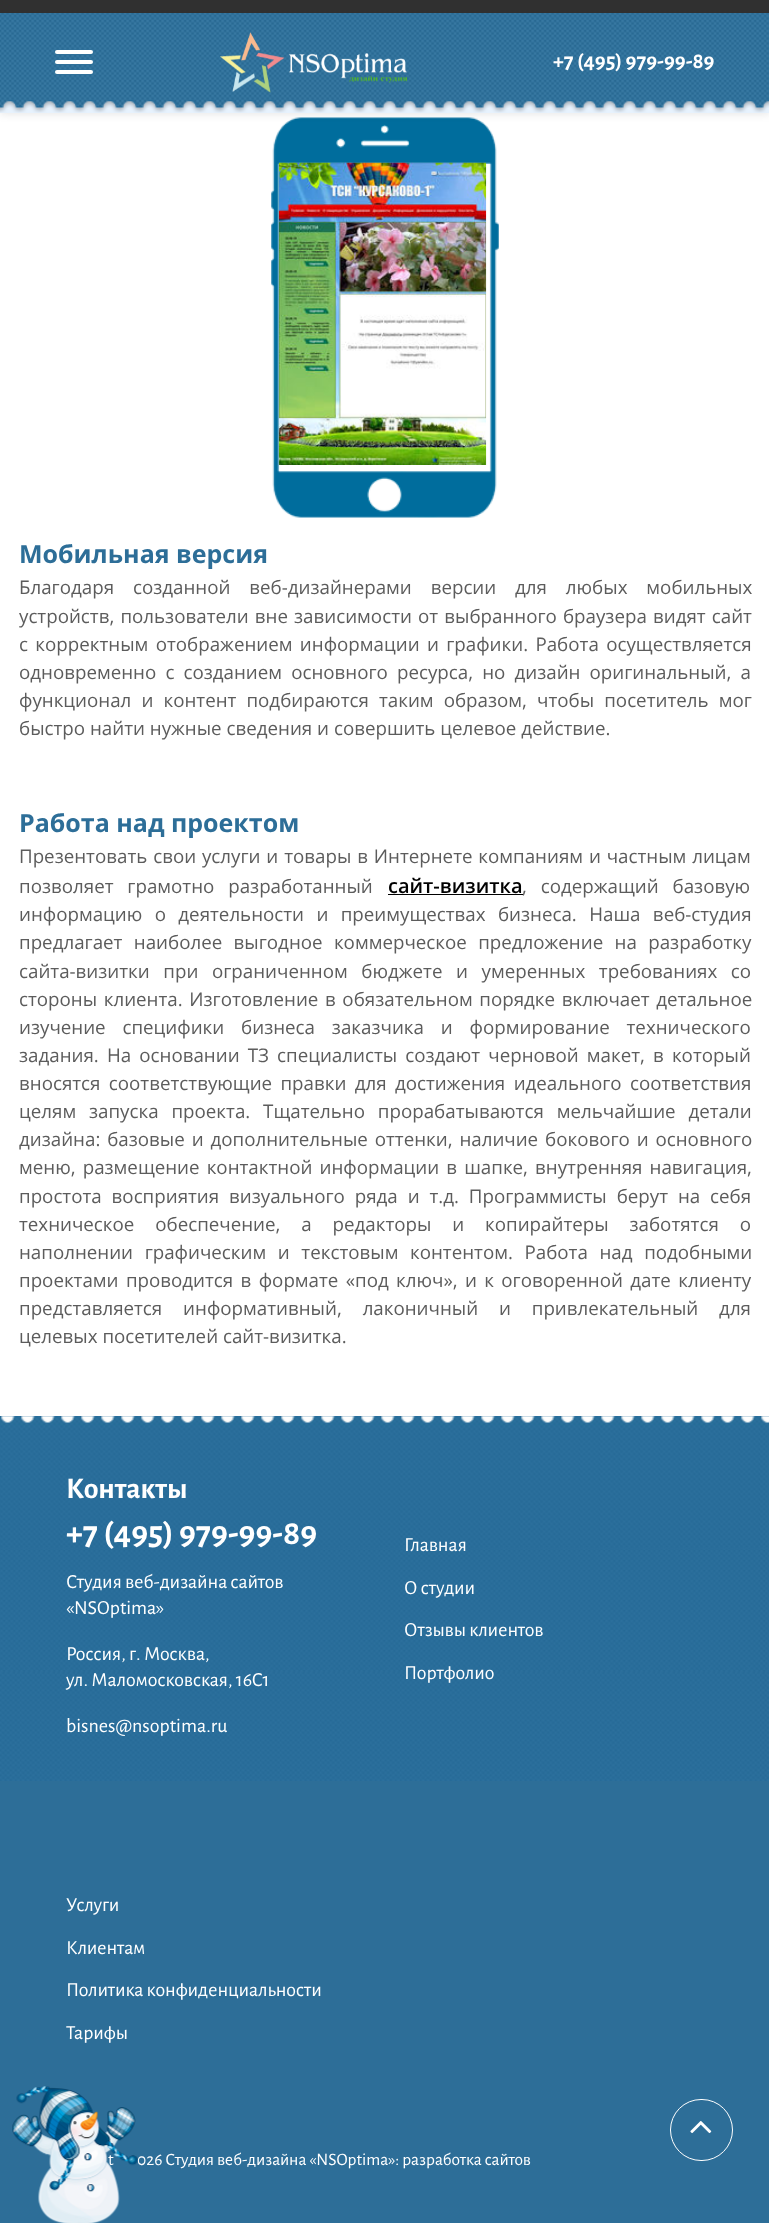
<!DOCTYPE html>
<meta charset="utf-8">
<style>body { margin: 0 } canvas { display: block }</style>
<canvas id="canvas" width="769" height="2223"></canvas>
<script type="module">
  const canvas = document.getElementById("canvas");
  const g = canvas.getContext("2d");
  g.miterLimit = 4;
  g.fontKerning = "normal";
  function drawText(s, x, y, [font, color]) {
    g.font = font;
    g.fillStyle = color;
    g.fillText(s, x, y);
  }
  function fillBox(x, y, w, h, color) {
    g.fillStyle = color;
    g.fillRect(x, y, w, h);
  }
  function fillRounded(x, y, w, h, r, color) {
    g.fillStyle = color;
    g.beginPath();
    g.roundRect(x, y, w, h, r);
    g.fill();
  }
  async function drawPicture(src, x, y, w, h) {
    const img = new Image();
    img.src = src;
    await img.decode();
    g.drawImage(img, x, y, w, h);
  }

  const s1 = ["bold 22.5px Alegreya Sans", "#FFFFFF"];
  const s2 = ["bold 25px Open Sans", "#2D6E98"];
  const s3 = ["18.75px Open Sans", "#5C5C5C"];
  const s4 = ["600 20px Open Sans", "#000000"];
  const s5 = ["bold 30px Alegreya Sans", "#FFFFFF"];
  const s6 = ["bold 35px Alegreya Sans", "#FFFFFF"];
  const s7 = ["20px Alegreya Sans", "#FFFFFF"];
  const s8 = ["17.5px Alegreya Sans", "#FFFFFF"];

  fillBox(0, 0, 769, 2223, "#FFFFFF");
  await drawPicture("pic3.png", 271, 117, 228, 401);
  g.fillStyle = "rgba(0, 0, 0, 0.1)";
  g.filter = "blur(4px)";
  g.beginPath();
  g.rect(0, 1, 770, 113);
  g.fill();
  g.filter = "none";
  fillBox(0, 101, 769, 12, "#E7F2FD");
  await drawPicture("pic1.png", 0, 13, 769, 100);
  fillBox(0, 0, 769, 13, "#303030");
  fillRounded(55, 50, 38, 4, 2, "#FFFFFF");
  fillRounded(55, 60, 38, 4, 2, "#FFFFFF");
  fillRounded(55, 70, 38, 4, 2, "#FFFFFF");
  await drawPicture("pic2.png", 220, 32, 188, 61);
  drawText("+7 (495) 979-99-89", 553, 68, s1);
  await drawPicture("pic4.png", 278, 162, 209, 303);
  drawText("Мобильная версия", 19, 563, s2);
  g.wordSpacing = "14px";
  drawText("Благодаря созданной веб-дизайнерами версии для любых мобильных", 19, 594, s3);
  g.wordSpacing = "1.25px";
  drawText("устройств, пользователи вне зависимости от выбранного браузера видят сайт", 19, 623, s3);
  g.wordSpacing = "2.5px";
  drawText("с корректным отображением информации и графики. Работа осуществляется", 19, 651, s3);
  g.wordSpacing = "4.25px";
  drawText("одновременно с созданием основного ресурса, но дизайн оригинальный, а", 19, 679, s3);
  g.wordSpacing = "5.25px";
  drawText("функционал и контент подбираются таким образом, чтобы посетитель мог", 19, 707, s3);
  g.wordSpacing = "0px";
  drawText("быстро найти нужные сведения и совершить целевое действие.", 19, 735, s3);
  drawText("Работа над проектом", 19, 832, s2);
  g.wordSpacing = "1px";
  drawText("Презентовать свои услуги и товары в Интернете компаниям и частным лицам", 19, 863, s3);
  g.wordSpacing = "9px";
  drawText("позволяет грамотно разработанный", 19, 893, s3);
  g.wordSpacing = "0px";
  drawText("сайт-визитка", 388, 893, s4);
  fillBox(388, 894, 135, 1, "#000000");
  g.wordSpacing = "9px";
  drawText(", содержащий базовую", 522, 893, s3);
  g.wordSpacing = "7.5px";
  drawText("информацию о деятельности и преимуществах бизнеса. Наша веб-студия", 19, 921, s3);
  g.wordSpacing = "6.5px";
  drawText("предлагает наиболее выгодное коммерческое предложение на разработку", 19, 949, s3);
  g.wordSpacing = "8.75px";
  drawText("сайта-визитки при ограниченном бюджете и умеренных требованиях со", 19, 978, s3);
  g.wordSpacing = "1.75px";
  drawText("стороны клиента. Изготовление в обязательном порядке включает детальное", 19, 1006, s3);
  g.wordSpacing = "12px";
  drawText("изучение специфики бизнеса заказчика и формирование технического", 19, 1034, s3);
  g.wordSpacing = "3.25px";
  drawText("задания. На основании ТЗ специалисты создают черновой макет, в который", 19, 1062, s3);
  g.wordSpacing = "3.5px";
  drawText("вносятся соответствующие правки для достижения идеального соответствия", 19, 1090, s3);
  g.wordSpacing = "8px";
  drawText("целям запуска проекта. Тщательно прорабатываются мельчайшие детали", 19, 1118, s3);
  g.wordSpacing = "2px";
  drawText("дизайна: базовые и дополнительные оттенки, наличие бокового и основного", 19, 1146, s3);
  g.wordSpacing = "2.25px";
  drawText("меню, размещение контактной информации в шапке, внутренняя навигация,", 19, 1174, s3);
  g.wordSpacing = "5px";
  drawText("простота восприятия визуального ряда и т.д. Программисты берут на себя", 19, 1203, s3);
  g.wordSpacing = "16px";
  drawText("техническое обеспечение, а редакторы и копирайтеры заботятся о", 19, 1231, s3);
  g.wordSpacing = "6.75px";
  drawText("наполнении графическим и текстовым контентом. Работа над подобными", 19, 1259, s3);
  g.wordSpacing = "2.5px";
  drawText("проектами проводится в формате «под ключ», и к оговоренной дате клиенту", 19, 1287, s3);
  g.wordSpacing = "16px";
  drawText("представляется информативный, лаконичный и привлекательный для", 19, 1315, s3);
  g.wordSpacing = "0px";
  drawText("целевых посетителей сайт-визитка.", 19, 1343, s3);
  fillBox(0, 1416, 769, 807, "#2D6E98");
  await drawPicture("pic5.png", 0, 1416, 769, 365);
  drawText("Контакты", 66, 1498, s5);
  drawText("+7 (495) 979-99-89", 66, 1544, s6);
  drawText("Студия веб-дизайна сайтов", 66, 1588, s7);
  drawText("«NSOptima»", 66, 1614, s7);
  drawText("Россия, г. Москва,", 66, 1660, s7);
  drawText("ул. Маломосковская, 16C1", 66, 1686, s7);
  drawText("bisnes@nsoptima.ru", 66, 1732, s7);
  drawText("Главная", 404, 1551, s7);
  drawText("О студии", 404, 1594, s7);
  drawText("Отзывы клиентов", 404, 1636, s7);
  drawText("Портфолио", 404, 1679, s7);
  drawText("Услуги", 66, 1911, s7);
  drawText("Клиентам", 66, 1954, s7);
  drawText("Политика конфиденциальности", 66, 1996, s7);
  drawText("Тарифы", 66, 2039, s7);
  drawText("t", 108, 2165, s8);
  drawText("026 Студия веб-дизайна «NSOptima»: разработка сайтов", 137, 2165, s8);
  await drawPicture("pic6.png", 12, 2086, 126, 137);
  g.beginPath();
  g.roundRect(670.5, 2099.5, 62, 61, 30.5);
  g.strokeStyle = "#FFFFFF";
  g.stroke();
  await drawPicture("pic7.png", 690, 2121, 22, 13);
</script>
